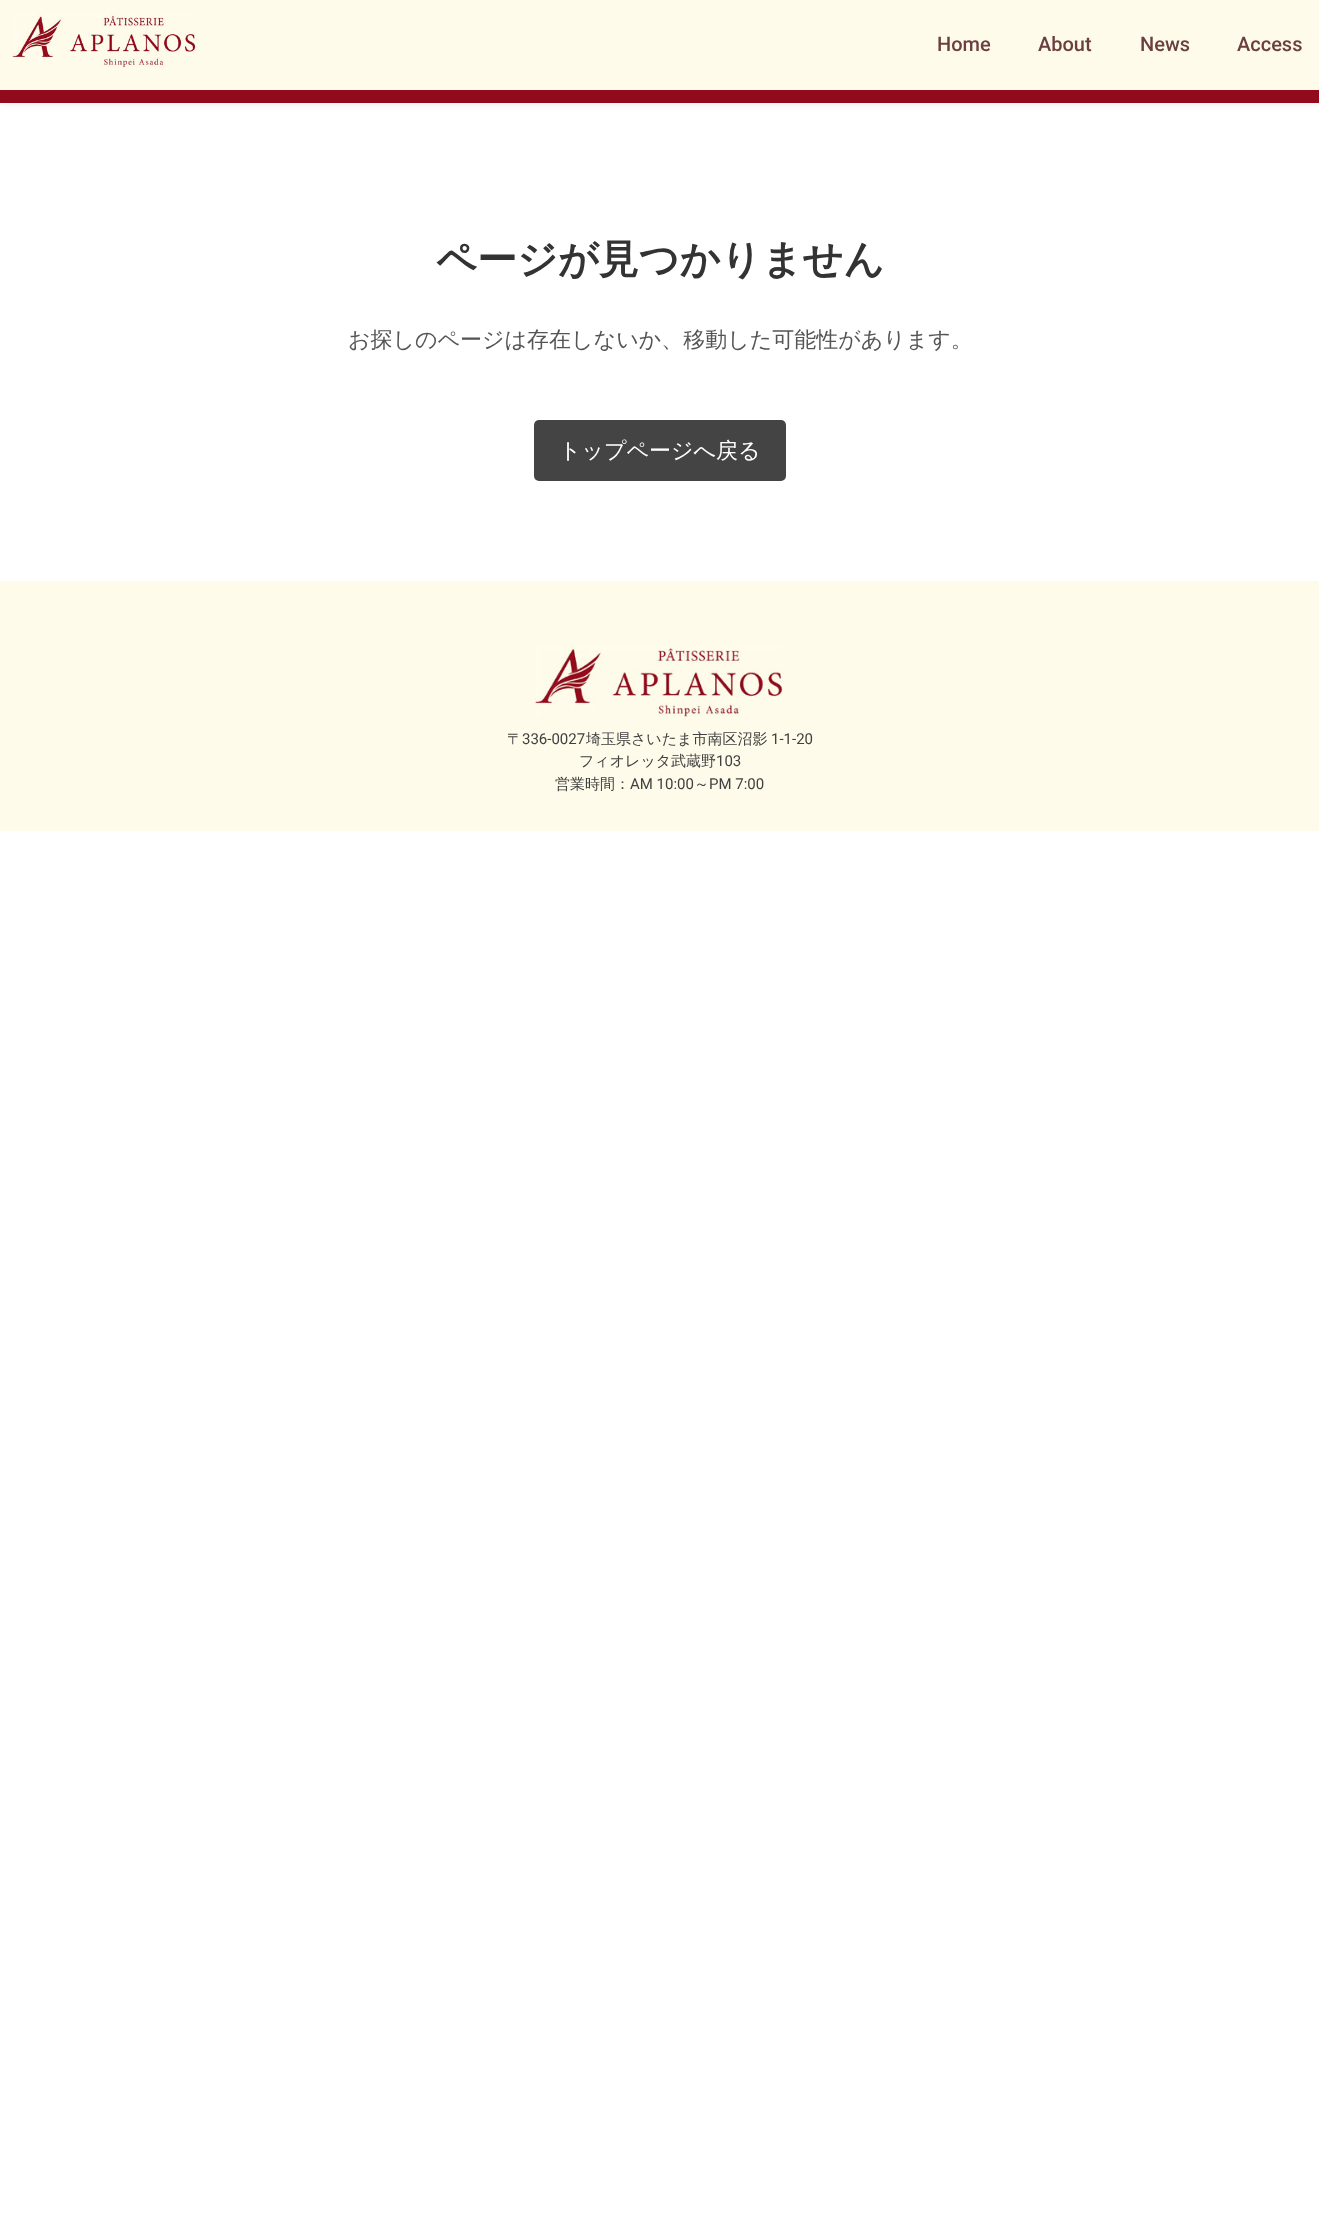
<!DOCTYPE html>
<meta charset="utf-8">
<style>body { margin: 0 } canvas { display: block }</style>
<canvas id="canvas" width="1319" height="2237"></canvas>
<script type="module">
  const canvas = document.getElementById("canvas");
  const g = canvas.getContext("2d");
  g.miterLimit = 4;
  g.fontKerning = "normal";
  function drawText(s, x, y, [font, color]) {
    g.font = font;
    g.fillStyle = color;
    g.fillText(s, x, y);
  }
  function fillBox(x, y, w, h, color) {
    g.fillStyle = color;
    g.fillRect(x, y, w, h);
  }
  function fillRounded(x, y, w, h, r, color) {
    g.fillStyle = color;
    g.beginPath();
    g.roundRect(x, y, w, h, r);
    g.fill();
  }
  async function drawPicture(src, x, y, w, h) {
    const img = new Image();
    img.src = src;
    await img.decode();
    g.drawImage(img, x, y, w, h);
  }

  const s1 = ["500 20px Roboto", "#6B3F3F"];
  const s2 = ["bold 40px WenQuanYi Zen Hei", "#333333"];
  const s3 = ["500 22px WenQuanYi Zen Hei", "#555555"];
  const s4 = ["500 22px WenQuanYi Zen Hei", "#FFFFFF"];
  const s5 = ["500 15px WenQuanYi Zen Hei", "#404040"];
  const s6 = ["15px Roboto", "#404040"];

  fillBox(0, 0, 1319, 2237, "#FFFFFF");
  g.fillStyle = "rgba(0, 0, 0, 0.05)";
  g.filter = "blur(3px)";
  g.beginPath();
  g.rect(0, 3, 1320, 102);
  g.fill();
  g.filter = "none";
  fillBox(0, 0, 1319, 90, "#FEFBEA");
  fillBox(0, 90, 1319, 13, "#910B1C");
  await drawPicture("pic1.png", 12, 13, 184, 54);
  drawText("Home", 937, 51, s1);
  drawText("About", 1038, 51, s1);
  drawText("News", 1140, 51, s1);
  drawText("Access", 1237, 51, s1);
  drawText("ページが見つかりません", 436, 273, s2);
  drawText("お探しのページは存在しないか、移動した可能性があります。", 348, 347, s3);
  fillRounded(534, 420, 252, 61, 5, "#444444");
  drawText("トップページへ戻る", 559, 458, s4);
  fillBox(0, 581, 1319, 250, "#FEFBEA");
  await drawPicture("pic2.png", 535, 644, 248, 73);
  drawText("〒", 507, 744, s5);
  drawText("336-0027", 522, 744, s6);
  drawText("埼玉県さいたま市南区沼影", 586, 744, s5);
  drawText("1-1-20", 771, 744, s6);
  drawText("フィオレッタ武蔵野", 579, 766, s5);
  drawText("103", 716, 766, s6);
  drawText("営業時間：", 555, 789, s5);
  drawText("AM 10:00", 630, 789, s6);
  drawText("～", 694, 789, s5);
  drawText("PM 7:00", 709, 789, s6);
</script>
